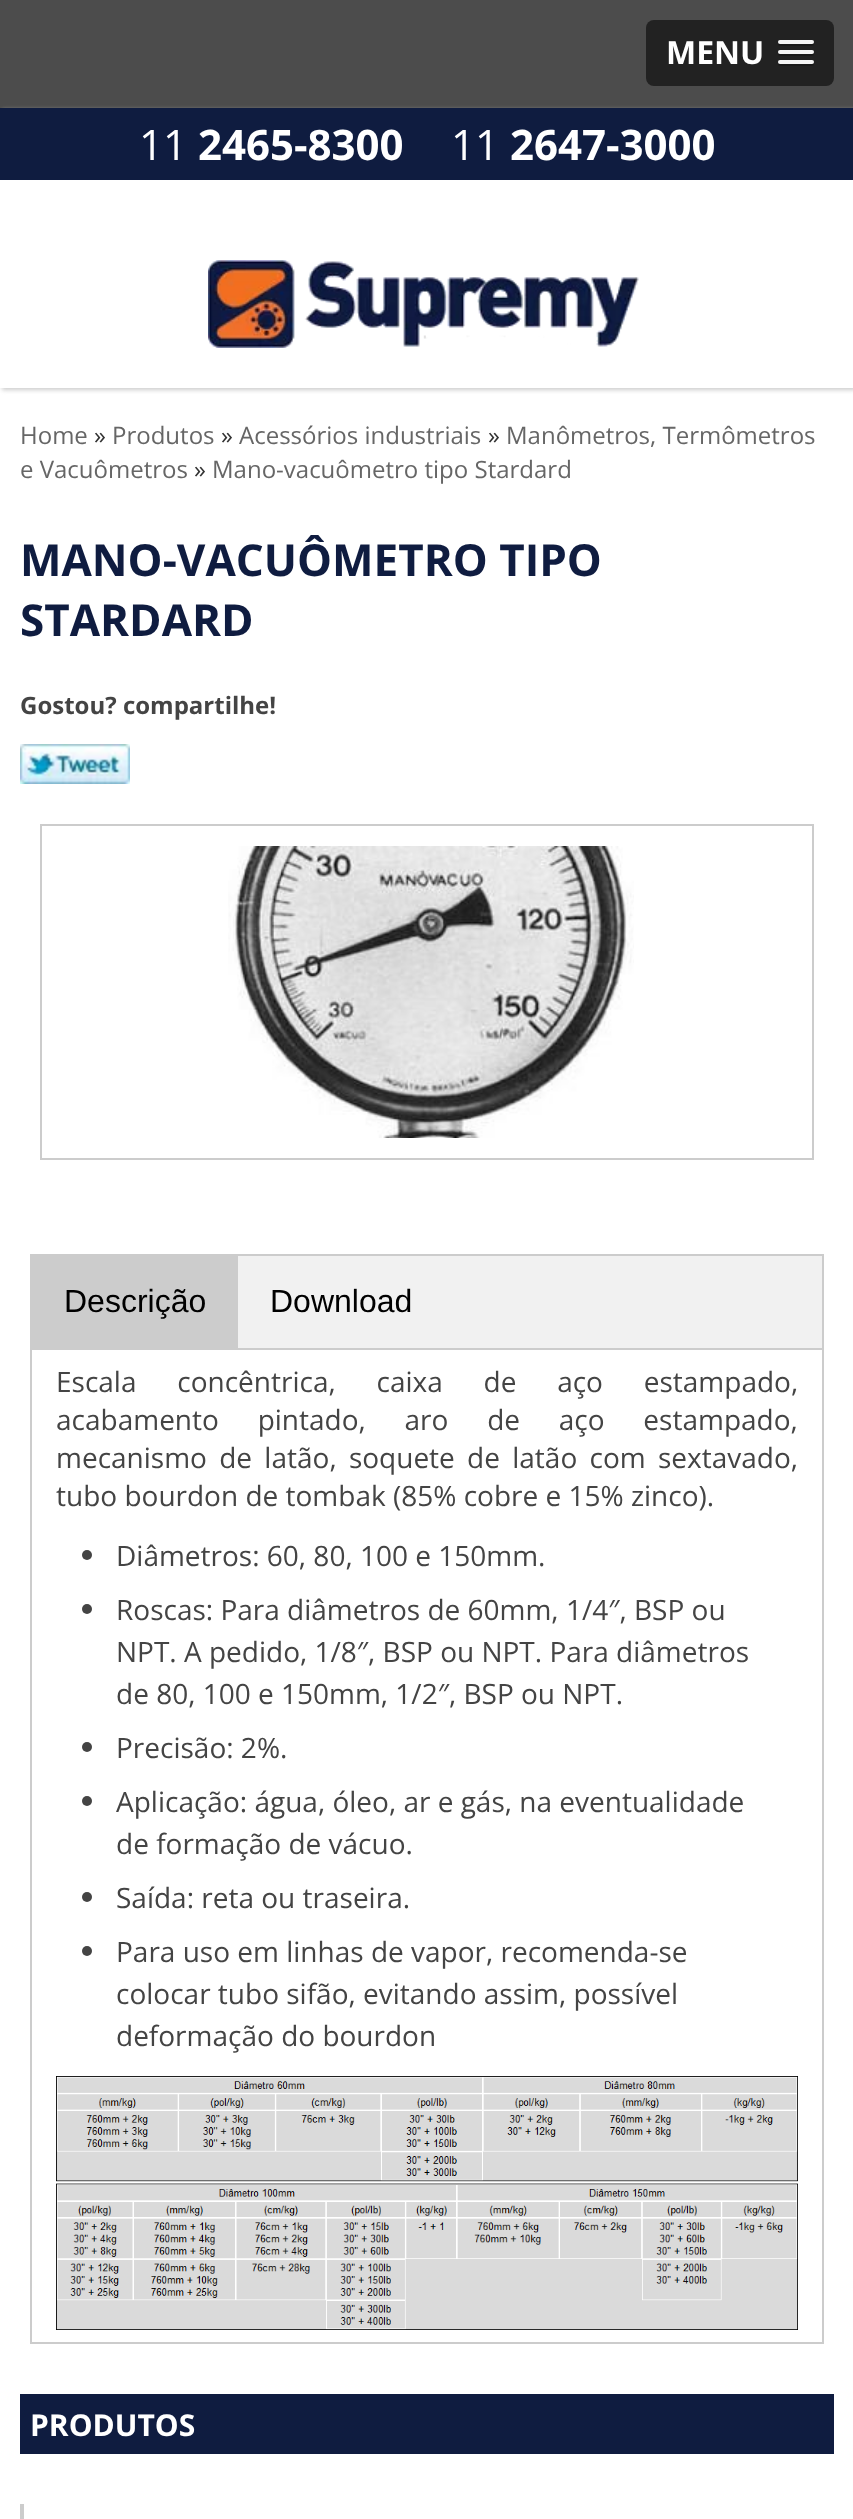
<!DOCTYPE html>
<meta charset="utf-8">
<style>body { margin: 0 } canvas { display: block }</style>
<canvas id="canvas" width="853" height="2519"></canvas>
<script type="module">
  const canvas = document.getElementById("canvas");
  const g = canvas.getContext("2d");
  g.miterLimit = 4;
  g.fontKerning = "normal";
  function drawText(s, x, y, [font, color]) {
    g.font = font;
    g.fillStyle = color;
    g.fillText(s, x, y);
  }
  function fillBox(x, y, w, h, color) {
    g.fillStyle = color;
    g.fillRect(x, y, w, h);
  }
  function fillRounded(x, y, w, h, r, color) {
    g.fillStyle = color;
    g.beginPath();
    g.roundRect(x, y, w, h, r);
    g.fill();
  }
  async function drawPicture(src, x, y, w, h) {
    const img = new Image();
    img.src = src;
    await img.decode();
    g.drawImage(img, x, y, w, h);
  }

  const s1 = ["bold 32px Open Sans", "#FFFFFF"];
  const s2 = ["42px Open Sans", "#FFFFFF"];
  const s3 = ["bold 42px Open Sans", "#FFFFFF"];
  const s4 = ["24px Open Sans", "#666666"];
  const s5 = ["24px Open Sans", "#333333"];
  const s6 = ["bold 44px Open Sans", "#0F1C40"];
  const s7 = ["bold 24px Open Sans", "#444444"];
  const s8 = ["32px Liberation Sans", "#000000"];
  const s9 = ["28px Open Sans", "#444444"];
  const s10 = ["bold 30px Open Sans", "#FFFFFF"];

  fillBox(0, 0, 853, 2519, "#FFFFFF");
  fillBox(0, 0, 853, 108, "#4C4C4C");
  fillRounded(646, 20, 188, 66, 8, "#222222");
  drawText("MENU", 666, 64, s1);
  g.fillStyle = "#1A1A1A";
  g.beginPath();
  g.moveTo(778.5, 43);
  g.bezierCurveTo(776, 47, 785, 46, 785.5, 46);
  g.lineTo(806.5, 46);
  g.bezierCurveTo(807, 46, 816, 47, 813.5, 43);
  g.bezierCurveTo(813.5, 43.5, 812.5, 44, 812, 44);
  g.lineTo(780, 44);
  g.bezierCurveTo(779.5, 44, 778.5, 43.5, 778.5, 43);
  g.closePath();
  g.fill();
  fillRounded(778, 40, 36, 4, 2, "#F5F5F5");
  g.fillStyle = "#1A1A1A";
  g.beginPath();
  g.moveTo(778.5, 53);
  g.bezierCurveTo(776, 57, 785, 56, 785.5, 56);
  g.lineTo(806.5, 56);
  g.bezierCurveTo(807, 56, 816, 57, 813.5, 53);
  g.bezierCurveTo(813.5, 53.5, 812.5, 54, 812, 54);
  g.lineTo(780, 54);
  g.bezierCurveTo(779.5, 54, 778.5, 53.5, 778.5, 53);
  g.closePath();
  g.fill();
  fillRounded(778, 50, 36, 4, 2, "#F5F5F5");
  g.fillStyle = "#1A1A1A";
  g.beginPath();
  g.moveTo(778.5, 63);
  g.bezierCurveTo(776, 67, 785, 66, 785.5, 66);
  g.lineTo(806.5, 66);
  g.bezierCurveTo(807, 66, 816, 67, 813.5, 63);
  g.bezierCurveTo(813.5, 63.5, 812.5, 64, 812, 64);
  g.lineTo(780, 64);
  g.bezierCurveTo(779.5, 64, 778.5, 63.5, 778.5, 63);
  g.closePath();
  g.fill();
  fillRounded(778, 60, 36, 4, 2, "#F5F5F5");
  g.save();
  g.beginPath();
  g.moveTo(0, 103);
  g.lineTo(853, 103);
  g.lineTo(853, 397);
  g.lineTo(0, 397);
  g.closePath();
  g.moveTo(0, 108);
  g.lineTo(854, 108);
  g.lineTo(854, 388);
  g.lineTo(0, 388);
  g.closePath();
  g.clip("evenodd");
  g.fillStyle = "#CCCCCC";
  g.filter = "blur(2px)";
  g.beginPath();
  g.rect(2, 110, 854, 280);
  g.fill();
  g.filter = "none";
  g.restore();
  fillBox(0, 108, 853, 72, "#0F1C40");
  drawText("11", 139, 160, s2);
  drawText("2465-8300", 198, 160, s3);
  drawText("11", 451, 160, s2);
  drawText("2647-3000", 510, 160, s3);
  await drawPicture("pic1.png", 208, 260, 431, 88);
  drawText("Home", 20, 444, s4);
  drawText("»", 94, 444, s5);
  drawText("Produtos", 112, 444, s4);
  drawText("»", 221, 444, s5);
  drawText("Acessórios industriais", 239, 444, s4);
  drawText("»", 488, 444, s5);
  drawText("Manômetros, Termômetros", 506, 444, s4);
  drawText("e Vacuômetros", 20, 478, s4);
  drawText("»", 194, 478, s5);
  drawText("Mano-vacuômetro tipo Stardard", 212, 478, s4);
  drawText("MANO-VACUÔMETRO TIPO", 20, 576, s6);
  drawText("STARDARD", 20, 636, s6);
  drawText("Gostou? compartilhe!", 20, 714, s7);
  await drawPicture("pic2.png", 20, 744, 110, 40);
  g.strokeStyle = "#CCCCCC";
  g.lineWidth = 2;
  g.strokeRect(41, 825, 772, 334);
  await drawPicture("pic3.png", 228, 846, 406, 292);
  fillBox(238, 1256, 584, 92, "#F1F1F1");
  g.strokeRect(31, 1255, 792, 94);
  fillBox(32, 1256, 206, 92, "#CCCCCC");
  drawText("Descrição", 64, 1312, s8);
  drawText("Download", 270, 1312, s8);
  fillBox(822, 1350, 2, 994, "#CCCCCC");
  fillBox(30, 2342, 794, 2, "#CCCCCC");
  fillBox(30, 1350, 2, 994, "#CCCCCC");
  g.wordSpacing = "33.5px";
  drawText("Escala concêntrica, caixa de aço estampado,", 56, 1392, s9);
  g.wordSpacing = "31.5px";
  drawText("acabamento pintado, aro de aço estampado,", 56, 1430, s9);
  g.wordSpacing = "5px";
  drawText("mecanismo de latão, soquete de latão com sextavado,", 56, 1468, s9);
  g.wordSpacing = "0px";
  drawText("tubo bourdon de tombak (85% cobre e 15% zinco).", 56, 1506, s9);
  g.beginPath();
  g.arc(87, 1555, 5, 0, Math.PI * 2);
  g.fill();
  drawText("Diâmetros: 60, 80, 100 e 150mm.", 116, 1566, s9);
  g.beginPath();
  g.arc(87, 1609, 5, 0, Math.PI * 2);
  g.fill();
  drawText("Roscas: Para diâmetros de 60mm, 1/4″, BSP ou", 116, 1620, s9);
  drawText("NPT. A pedido, 1/8″, BSP ou NPT. Para diâmetros", 116, 1662, s9);
  drawText("de 80, 100 e 150mm, 1/2″, BSP ou NPT.", 116, 1704, s9);
  g.beginPath();
  g.arc(87, 1747, 5, 0, Math.PI * 2);
  g.fill();
  drawText("Precisão: 2%.", 116, 1758, s9);
  g.beginPath();
  g.arc(87, 1801, 5, 0, Math.PI * 2);
  g.fill();
  drawText("Aplicação: água, óleo, ar e gás, na eventualidade", 116, 1812, s9);
  drawText("de formação de vácuo.", 116, 1854, s9);
  g.beginPath();
  g.arc(87, 1897, 5, 0, Math.PI * 2);
  g.fill();
  drawText("Saída: reta ou traseira.", 116, 1908, s9);
  g.beginPath();
  g.arc(87, 1951, 5, 0, Math.PI * 2);
  g.fill();
  drawText("Para uso em linhas de vapor, recomenda-se", 116, 1962, s9);
  drawText("colocar tubo sifão, evitando assim, possível", 116, 2004, s9);
  drawText("deformação do bourdon", 116, 2046, s9);
  await drawPicture("pic4.png", 56, 2076, 742, 254);
  fillBox(20, 2394, 814, 60, "#0F1C40");
  drawText("PRODUTOS", 30, 2436, s10);
  fillBox(20, 2504, 4, 15, "#CCCCCC");
</script>
